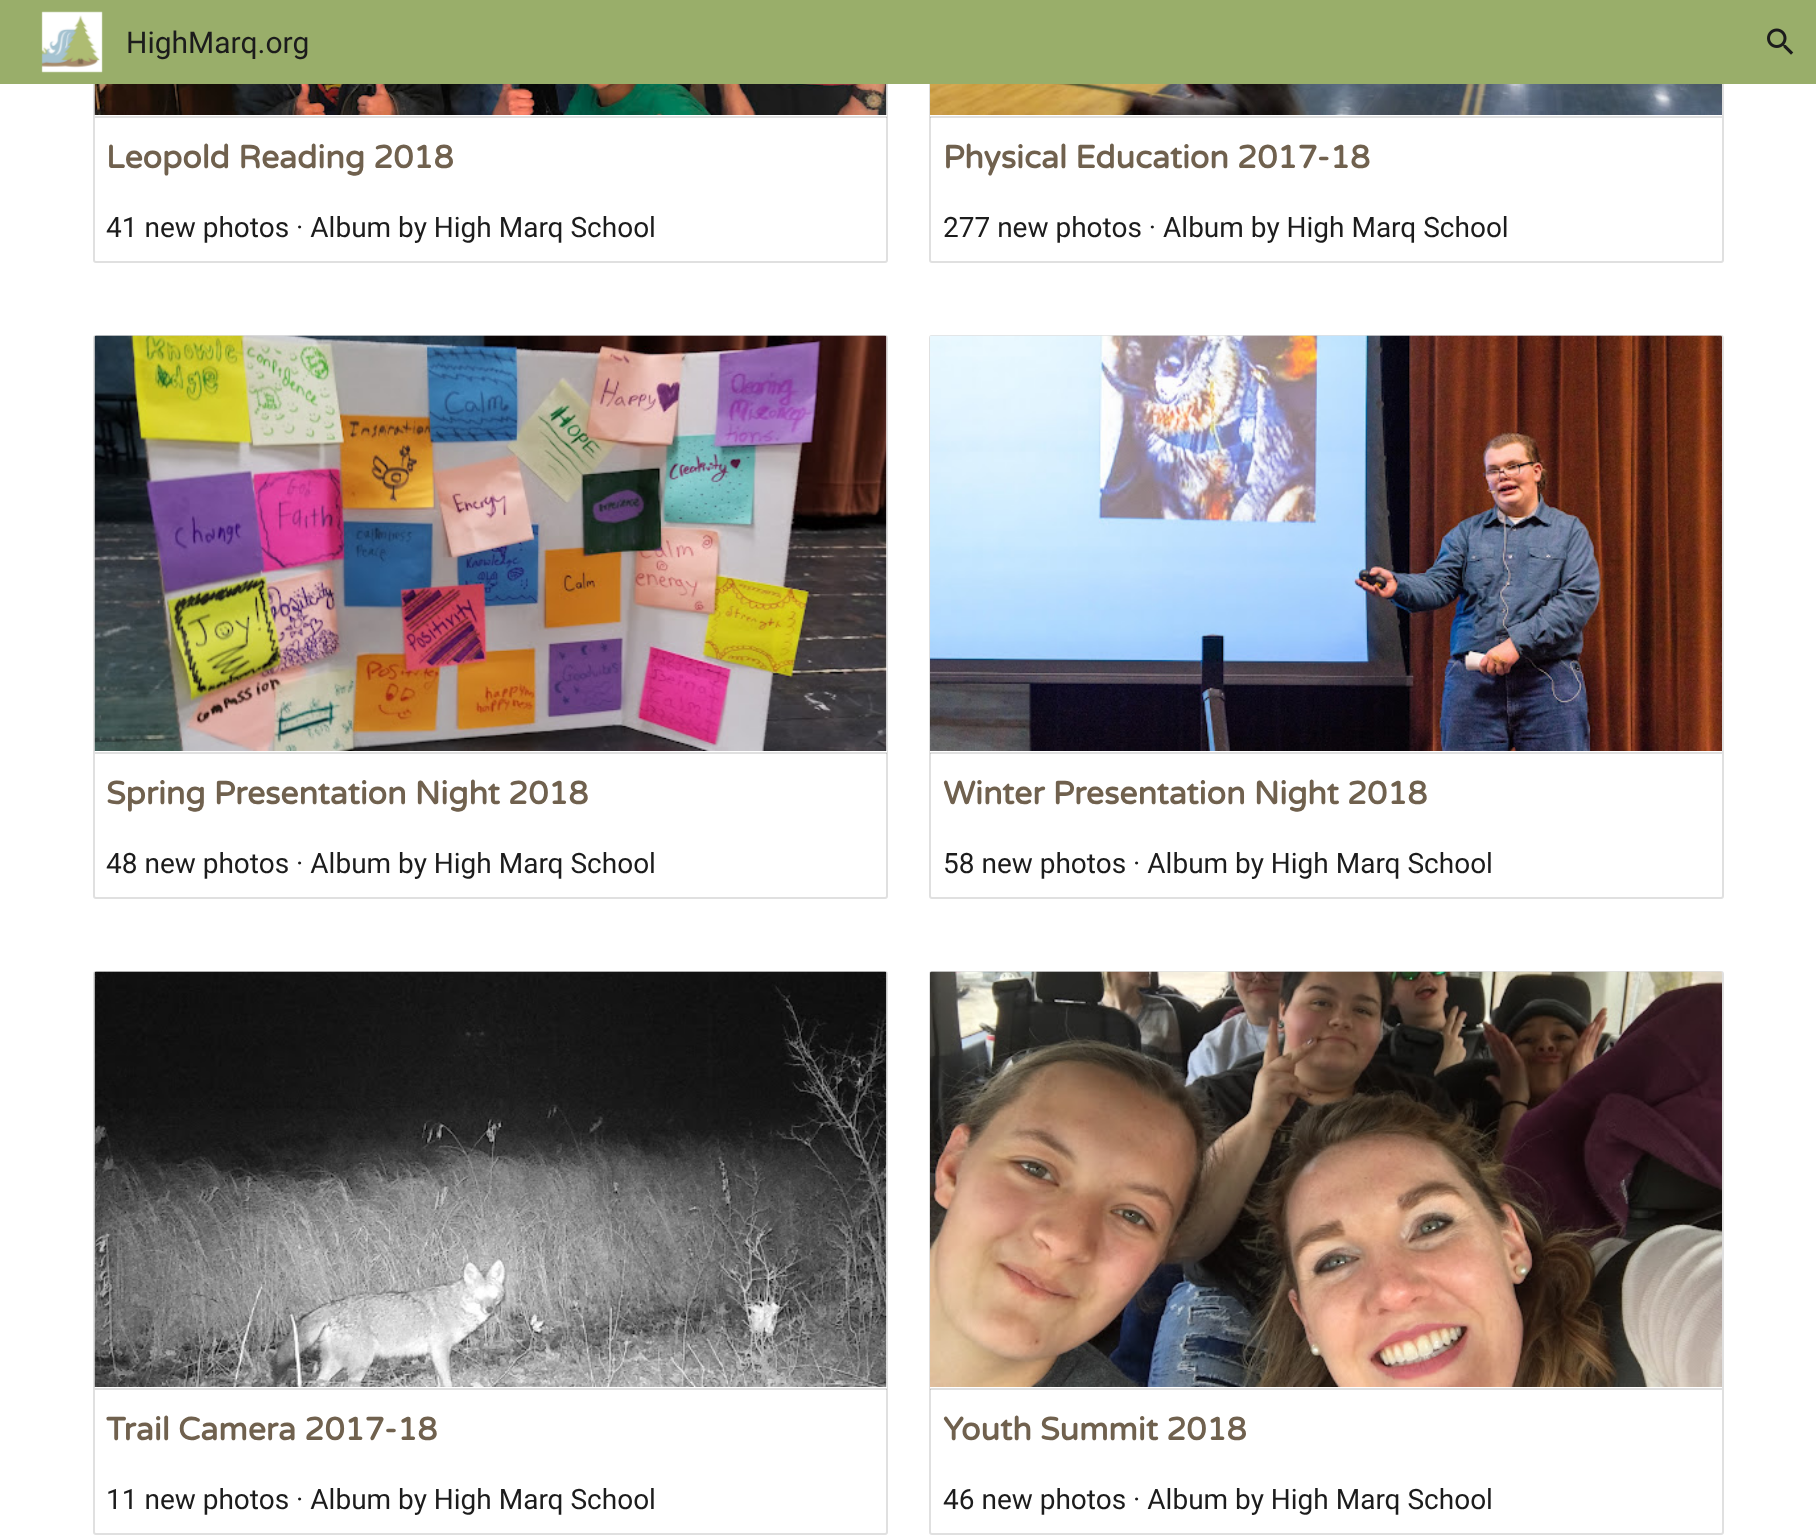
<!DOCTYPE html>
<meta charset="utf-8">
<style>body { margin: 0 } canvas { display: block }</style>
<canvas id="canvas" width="1816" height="1536"></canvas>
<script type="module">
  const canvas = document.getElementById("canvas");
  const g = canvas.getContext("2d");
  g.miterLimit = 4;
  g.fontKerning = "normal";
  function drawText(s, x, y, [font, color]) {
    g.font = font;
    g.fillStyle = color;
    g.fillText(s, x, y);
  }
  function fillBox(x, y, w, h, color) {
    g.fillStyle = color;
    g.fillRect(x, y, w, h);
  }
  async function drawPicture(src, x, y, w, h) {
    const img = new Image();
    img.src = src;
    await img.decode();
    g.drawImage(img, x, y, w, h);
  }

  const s1 = ["30px Roboto", "#1C1C1C"];
  const s2 = ["bold 32px Varela Round", "#70614E"];
  const s3 = ["28px Roboto", "#1C1C1C"];

  fillBox(0, 0, 1816, 1536, "#FFFFFF");
  g.beginPath();
  g.roundRect(94, -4, 793, 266, 2);
  g.strokeStyle = "#E0E0E0";
  g.lineWidth = 2;
  g.stroke();
  g.beginPath();
  g.roundRect(930, -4, 793, 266, 2);
  g.stroke();
  fillBox(0, 0, 1816, 84, "#99AE6A");
  await drawPicture("pic1.png", 41, 11, 62, 62);
  drawText("HighMarq.org", 126, 53, s1);
  await drawPicture("pic2.png", 1767, 28, 27, 27);
  fillBox(886, 84, 1, 33, "#FFFFFF");
  await drawPicture("pic3.png", 94, 84, 793, 31);
  fillBox(95, 116, 792, 2, "rgba(0, 0, 0, 0.12)");
  drawText("Leopold Reading 2018", 106, 168, s2);
  drawText("41 new photos · Album by High Marq School", 106, 237, s3);
  await drawPicture("pic4.png", 930, 84, 792, 31);
  fillBox(930, 115, 1, 2, "#FFFFFF");
  fillBox(930, 116, 792, 2, "rgba(0, 0, 0, 0.12)");
  drawText("Physical Education 2017-18", 943, 168, s2);
  drawText("277 new photos · Album by High Marq School", 943, 237, s3);
  g.beginPath();
  g.roundRect(94, 336, 793, 562, 2);
  g.stroke();
  g.fillStyle = "#FFFFFF";
  g.beginPath();
  g.roundRect(95, 336, 792, 417, [1.5, 1.5, 0, 0]);
  g.fill();
  await drawPicture("pic5.png", 94, 335, 793, 416);
  fillBox(95, 752, 792, 2, "rgba(0, 0, 0, 0.12)");
  drawText("Spring Presentation Night 2018", 106, 804, s2);
  drawText("48 new photos · Album by High Marq School", 106, 873, s3);
  g.beginPath();
  g.roundRect(930, 336, 793, 562, 2);
  g.stroke();
  g.fillStyle = "#FFFFFF";
  g.beginPath();
  g.roundRect(930, 336, 792, 417, [1.5, 1.5, 0, 0]);
  g.fill();
  await drawPicture("pic6.png", 930, 335, 792, 416);
  fillBox(930, 752, 792, 2, "rgba(0, 0, 0, 0.12)");
  drawText("Winter Presentation Night 2018", 943, 804, s2);
  drawText("58 new photos · Album by High Marq School", 943, 873, s3);
  g.beginPath();
  g.roundRect(94, 972, 793, 562, 2);
  g.stroke();
  g.fillStyle = "#FFFFFF";
  g.beginPath();
  g.roundRect(95, 972, 792, 417, [1.5, 1.5, 0, 0]);
  g.fill();
  await drawPicture("pic7.png", 94, 971, 793, 416);
  fillBox(95, 1388, 792, 2, "rgba(0, 0, 0, 0.12)");
  drawText("Trail Camera 2017-18", 106, 1440, s2);
  drawText("11 new photos · Album by High Marq School", 106, 1509, s3);
  g.beginPath();
  g.roundRect(930, 972, 793, 562, 2);
  g.stroke();
  g.fillStyle = "#FFFFFF";
  g.beginPath();
  g.roundRect(930, 972, 792, 417, [1.5, 1.5, 0, 0]);
  g.fill();
  await drawPicture("pic8.png", 930, 971, 792, 416);
  fillBox(930, 1388, 792, 2, "rgba(0, 0, 0, 0.12)");
  drawText("Youth Summit 2018", 943, 1440, s2);
  drawText("46 new photos · Album by High Marq School", 943, 1509, s3);
</script>
